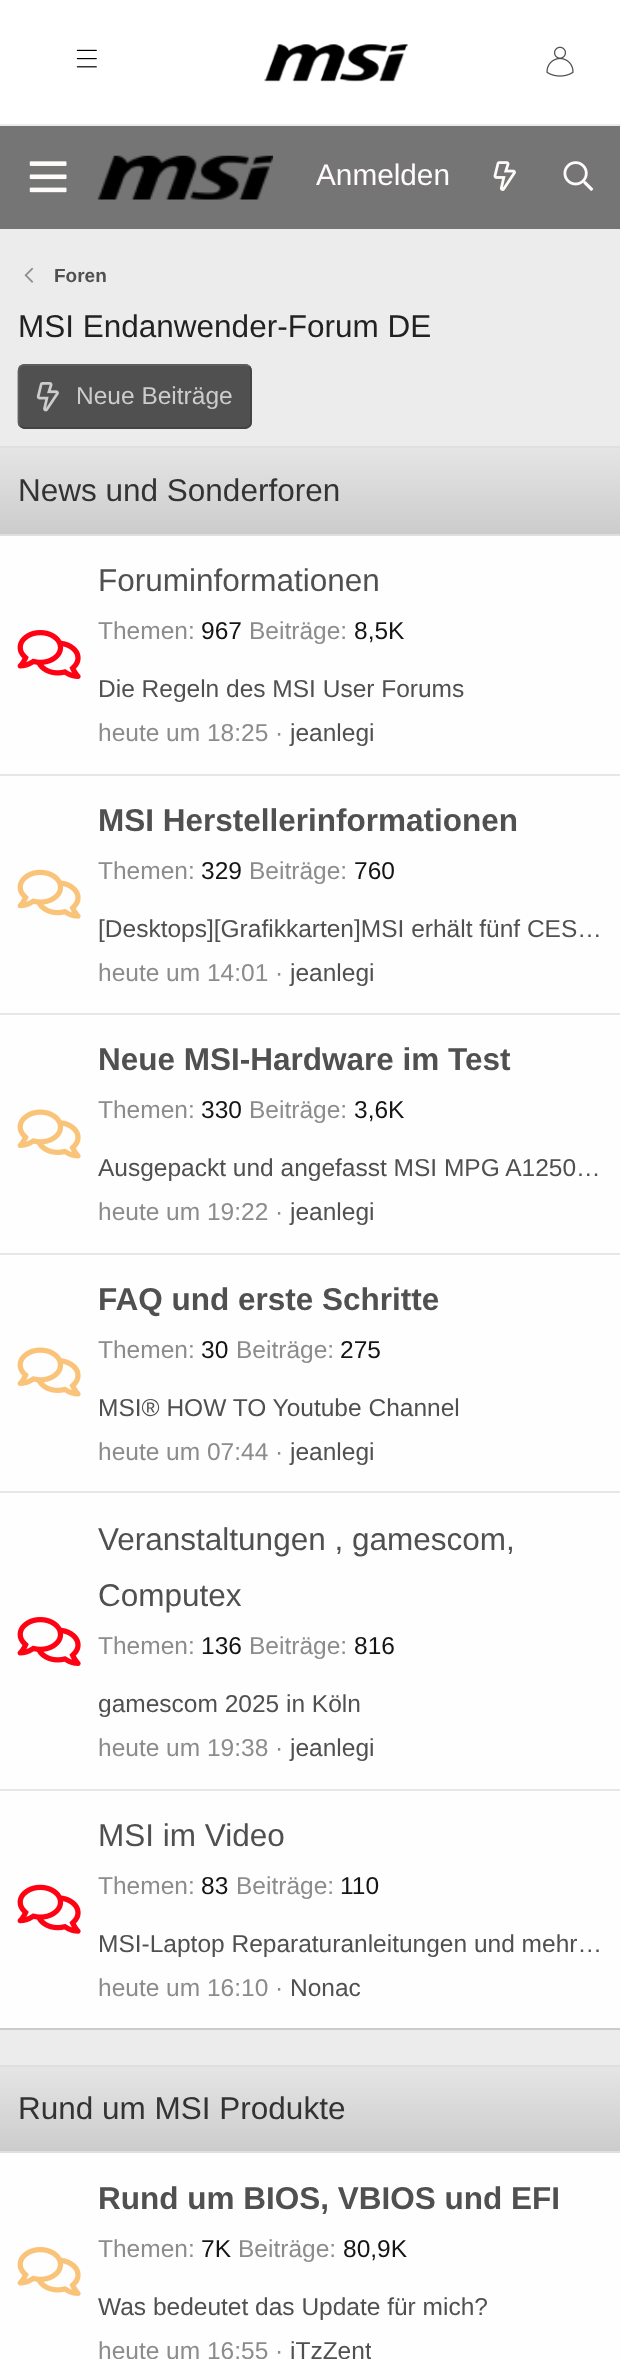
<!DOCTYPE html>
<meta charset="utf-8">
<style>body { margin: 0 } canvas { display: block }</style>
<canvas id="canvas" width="620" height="2359"></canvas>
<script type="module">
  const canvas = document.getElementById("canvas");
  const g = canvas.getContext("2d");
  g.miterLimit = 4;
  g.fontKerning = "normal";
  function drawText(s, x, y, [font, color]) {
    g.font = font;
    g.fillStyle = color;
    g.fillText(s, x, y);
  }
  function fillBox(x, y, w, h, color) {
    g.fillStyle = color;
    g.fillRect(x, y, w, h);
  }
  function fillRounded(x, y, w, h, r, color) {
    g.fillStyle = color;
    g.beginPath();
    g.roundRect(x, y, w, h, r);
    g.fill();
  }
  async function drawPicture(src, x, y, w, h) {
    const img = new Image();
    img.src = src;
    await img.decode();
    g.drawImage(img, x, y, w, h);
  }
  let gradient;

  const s1 = ["29.75px Liberation Sans", "#FFFBFB"];
  const s2 = ["bold 19px Liberation Sans", "#505050"];
  const s3 = ["31.5px Liberation Sans", "#222222"];
  const s4 = ["24.5px Liberation Sans", "#CCCCCC"];
  const s5 = ["31.5px Liberation Sans", "#333333"];
  const s6 = ["31.5px Liberation Sans", "#505050"];
  const s7 = ["24.5px Liberation Sans", "#8C8C8C"];
  const s8 = ["24.5px Liberation Sans", "#141414"];
  const s9 = ["24.5px Liberation Sans", "#505050"];
  const s10 = ["bold 31.5px Liberation Sans", "#505050"];

  fillBox(0, 0, 620, 2359, "#ECECEC");
  fillBox(0, 0, 620, 124, "#FFFFFF");
  await drawPicture("pic1.png", 76, 49, 21, 19);
  await drawPicture("pic2.png", 264, 44, 144, 38);
  await drawPicture("pic3.png", 546, 46, 28, 31);
  fillBox(0, 126, 620, 103, "#757575");
  await drawPicture("pic4.png", 29, 161, 38, 32);
  await drawPicture("pic5.png", 97, 155, 176, 45);
  drawText("Anmelden", 316, 185, s1);
  await drawPicture("pic6.png", 493, 161, 23, 30);
  await drawPicture("pic7.png", 563, 161, 31, 30);
  await drawPicture("pic8.png", 24, 267, 10, 16);
  drawText("Foren", 54, 282, s2);
  drawText("MSI Endanwender-Forum DE", 18, 337, s3);
  fillRounded(18, 364, 234, 65, 7, "#505050");
  g.beginPath();
  g.moveTo(249.5, 366.5);
  g.bezierCurveTo(250.5, 368, 251, 369.5, 251, 371);
  g.lineTo(251, 422);
  g.bezierCurveTo(251, 423.5, 250.5, 425, 249.5, 426);
  g.bezierCurveTo(248, 427, 246.5, 428, 245, 428);
  g.lineTo(24.5, 428);
  g.bezierCurveTo(23, 428, 21.5, 427, 20, 426);
  g.strokeStyle = "#434343";
  g.lineWidth = 1.8;
  g.stroke();
  g.beginPath();
  g.moveTo(20, 426);
  g.bezierCurveTo(19, 425, 18.5, 423.5, 18.5, 422);
  g.lineTo(18.5, 371);
  g.bezierCurveTo(18.5, 369.5, 19, 368, 20, 366.5);
  g.bezierCurveTo(21.5, 365.5, 23, 365, 24.5, 365);
  g.lineTo(245, 365);
  g.bezierCurveTo(246.5, 365, 248, 365.5, 249.5, 366.5);
  g.strokeStyle = "#5D5D5D";
  g.stroke();
  await drawPicture("pic9.png", 36, 382, 23, 30);
  drawText("Neue Beiträge", 76, 404, s4);
  fillBox(0, 536, 620, 1492, "#FEFEFE");
  fillBox(0, 446, 620, 2, "#DFDFDF");
  fillBox(0, 2028, 620, 2, "#CBCBCB");
  gradient = g.createLinearGradient(311, 534, 311, 448);
  gradient.addColorStop(0, "#CCCCCC");
  gradient.addColorStop(1, "#E5E5E5");
  g.fillStyle = gradient;
  g.fillRect(0, 448, 620, 86);
  fillBox(0, 534, 620, 2, "#DFDFDF");
  drawText("News und Sonderforen", 18, 501, s5);
  drawText("Foruminformationen", 98, 591, s6);
  drawText("Themen:", 98, 639, s7);
  drawText("967", 201, 639, s8);
  drawText("Beiträge:", 249, 639, s7);
  drawText("8,5K", 354, 639, s8);
  await drawPicture("pic10.png", 17, 630, 64, 49);
  drawText("Die Regeln des MSI User Forums", 98, 697, s9);
  drawText("heute um 18:25 ·", 98, 741, s7);
  drawText("jeanlegi", 290, 741, s9);
  fillBox(0, 774, 620, 2, "#E7E7E7");
  drawText("MSI Herstellerinformationen", 98, 831, s10);
  drawText("Themen:", 98, 879, s7);
  drawText("329", 201, 879, s8);
  drawText("Beiträge:", 249, 879, s7);
  drawText("760", 354, 879, s8);
  await drawPicture("pic11.png", 17, 869, 64, 50);
  drawText("[Desktops][Grafikkarten]MSI erhält fünf CES…", 98, 937, s9);
  drawText("heute um 14:01 ·", 98, 981, s7);
  drawText("jeanlegi", 290, 981, s9);
  fillBox(0, 1013, 620, 2, "#E7E7E7");
  drawText("Neue MSI-Hardware im Test", 98, 1070, s10);
  drawText("Themen:", 98, 1118, s7);
  drawText("330", 201, 1118, s8);
  drawText("Beiträge:", 249, 1118, s7);
  drawText("3,6K", 354, 1118, s8);
  await drawPicture("pic12.png", 17, 1109, 64, 50);
  drawText("Ausgepackt und angefasst MSI MPG A1250…", 98, 1176, s9);
  drawText("heute um 19:22 ·", 98, 1220, s7);
  drawText("jeanlegi", 290, 1220, s9);
  fillBox(0, 1253, 620, 2, "#E7E7E7");
  drawText("FAQ und erste Schritte", 98, 1310, s10);
  drawText("Themen:", 98, 1358, s7);
  drawText("30", 201, 1358, s8);
  drawText("Beiträge:", 236, 1358, s7);
  drawText("275", 340, 1358, s8);
  await drawPicture("pic12.png", 17, 1347, 64, 50);
  drawText("MSI® HOW TO Youtube Channel", 98, 1416, s9);
  drawText("heute um 07:44 ·", 98, 1460, s7);
  drawText("jeanlegi", 290, 1460, s9);
  fillBox(0, 1491, 620, 2, "#E7E7E7");
  await drawPicture("pic10.png", 17, 1617, 64, 49);
  drawText("Veranstaltungen , gamescom,", 98, 1550, s6);
  drawText("Computex", 98, 1606, s6);
  drawText("Themen:", 98, 1654, s7);
  drawText("136", 201, 1654, s8);
  drawText("Beiträge:", 249, 1654, s7);
  drawText("816", 354, 1654, s8);
  drawText("gamescom 2025 in Köln", 98, 1712, s9);
  drawText("heute um 19:38 ·", 98, 1756, s7);
  drawText("jeanlegi", 290, 1756, s9);
  fillBox(0, 1789, 620, 2, "#E7E7E7");
  drawText("MSI im Video", 98, 1846, s6);
  drawText("Themen:", 98, 1894, s7);
  drawText("83", 201, 1894, s8);
  drawText("Beiträge:", 236, 1894, s7);
  drawText("110", 340, 1894, s8);
  await drawPicture("pic13.png", 17, 1884, 64, 50);
  drawText("MSI-Laptop Reparaturanleitungen und mehr…", 98, 1952, s9);
  drawText("heute um 16:10 ·", 98, 1996, s7);
  drawText("Nonac", 290, 1996, s9);
  fillBox(0, 2153, 620, 206, "#FEFEFE");
  fillBox(0, 2065, 620, 2, "#DFDFDF");
  gradient = g.createLinearGradient(311, 2151, 311, 2067);
  gradient.addColorStop(0, "#CCCCCC");
  gradient.addColorStop(1, "#E5E5E5");
  g.fillStyle = gradient;
  g.fillRect(0, 2067, 620, 84);
  fillBox(0, 2151, 620, 2, "#DFDFDF");
  drawText("Rund um MSI Produkte", 18, 2119, s5);
  drawText("Rund um BIOS, VBIOS und EFI", 98, 2209, s10);
  drawText("Themen:", 98, 2257, s7);
  drawText("7K", 201, 2257, s8);
  drawText("Beiträge:", 238, 2257, s7);
  drawText("80,9K", 343, 2257, s8);
  await drawPicture("pic14.png", 17, 2247, 64, 49);
  drawText("Was bedeutet das Update für mich?", 98, 2315, s9);
  drawText("heute um 16:55 ·", 98, 2359, s7);
  g.save();
  g.beginPath();
  g.rect(98, 2329, 273, 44);
  g.clip();
  drawText("iTzZent", 290, 2359, s9);
  g.restore();
</script>
